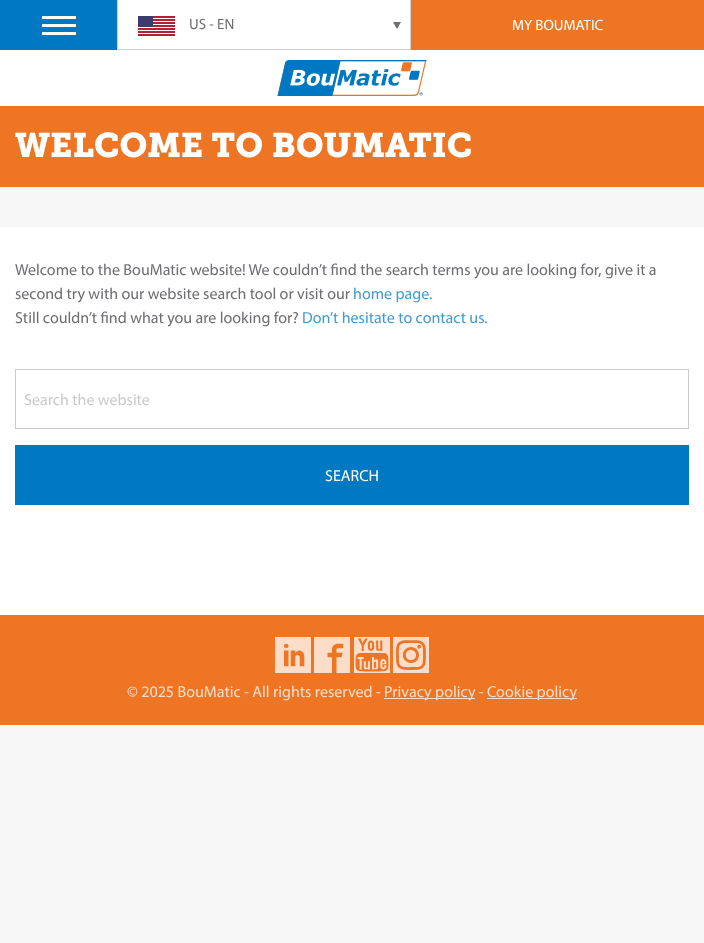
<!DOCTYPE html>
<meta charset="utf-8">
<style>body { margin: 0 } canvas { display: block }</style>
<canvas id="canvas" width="704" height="943"></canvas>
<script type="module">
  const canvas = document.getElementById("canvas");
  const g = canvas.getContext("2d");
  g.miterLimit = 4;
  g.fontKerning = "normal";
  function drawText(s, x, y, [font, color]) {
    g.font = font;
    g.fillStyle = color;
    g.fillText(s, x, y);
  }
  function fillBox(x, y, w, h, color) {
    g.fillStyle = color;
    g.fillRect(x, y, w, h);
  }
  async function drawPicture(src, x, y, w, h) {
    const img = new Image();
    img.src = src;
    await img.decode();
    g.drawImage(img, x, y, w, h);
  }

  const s1 = ["15px Myriad", "#6D6E71"];
  const s2 = ["15px Myriad", "#FFFFFF"];
  const s3 = ["bold 34px 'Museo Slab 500'", "#FFFFFF"];
  const s4 = ["16px Myriad", "#6D6E71"];
  const s5 = ["16px Myriad", "#409BD1"];
  const s6 = ["16px Myriad", "#CACACA"];
  const s7 = ["16px Myriad", "#FFFFFF"];
  const s8 = ["16px Myriad", "#FBDDC9"];

  fillBox(0, 0, 704, 943, "#F7F7F7");
  fillBox(118, 0, 292, 49, "#FFFFFF");
  fillBox(0, 0, 117, 50, "#0079C2");
  fillBox(42, 16, 34, 3, "#FFFFFF");
  fillBox(42, 24, 34, 3, "#FFFFFF");
  fillBox(42, 32, 34, 3, "#FFFFFF");
  fillBox(410, 0, 1, 50, "#CFCFCF");
  fillBox(117, 49, 294, 1, "#CFCFCF");
  fillBox(117, 0, 1, 50, "#CFCFCF");
  await drawPicture("pic1.png", 138, 16, 37, 20);
  drawText("US - EN", 189, 29, s1);
  await drawPicture("pic2.png", 393, 22, 8, 7);
  fillBox(411, 0, 293, 50, "#EE7523");
  drawText("MY BOUMATIC", 512, 30, s2);
  fillBox(0, 50, 704, 56, "#FFFFFF");
  await drawPicture("pic3.png", 277, 60, 150, 36);
  fillBox(0, 106, 704, 81, "#EE7523");
  drawText("WELCOME TO BOUMATIC", 15, 157, s3);
  fillBox(0, 227, 704, 388, "#FFFFFF");
  drawText("Welcome to the BouMatic website! We couldn’t find the search terms you are looking for, give it a", 15, 275, s4);
  drawText("second try with our website search tool or visit our", 15, 299, s4);
  drawText("home page.", 353, 299, s5);
  drawText("Still couldn’t find what you are looking for?", 15, 323, s4);
  drawText("Don’t hesitate to contact us.", 302, 323, s5);
  g.strokeStyle = "#CACACA";
  g.strokeRect(15.5, 369.5, 673, 59);
  drawText("Search the website", 24, 405, s6);
  fillBox(15, 445, 674, 60, "#0079C2");
  drawText("SEARCH", 325, 481, s7);
  fillBox(0, 615, 704, 110, "#EE7523");
  await drawPicture("pic4.png", 275, 637, 36, 36);
  await drawPicture("pic5.png", 314, 637, 36, 36);
  await drawPicture("pic6.png", 354, 637, 36, 36);
  await drawPicture("pic7.png", 393, 637, 36, 36);
  drawText("© 2025 BouMatic - All rights reserved -", 127, 697, s8);
  fillBox(384, 698, 91, 1, "#FBDDC9");
  drawText("Privacy policy -", 384, 697, s8);
  fillBox(487, 698, 90, 1, "#FBDDC9");
  drawText("Cookie policy", 487, 697, s8);
</script>
